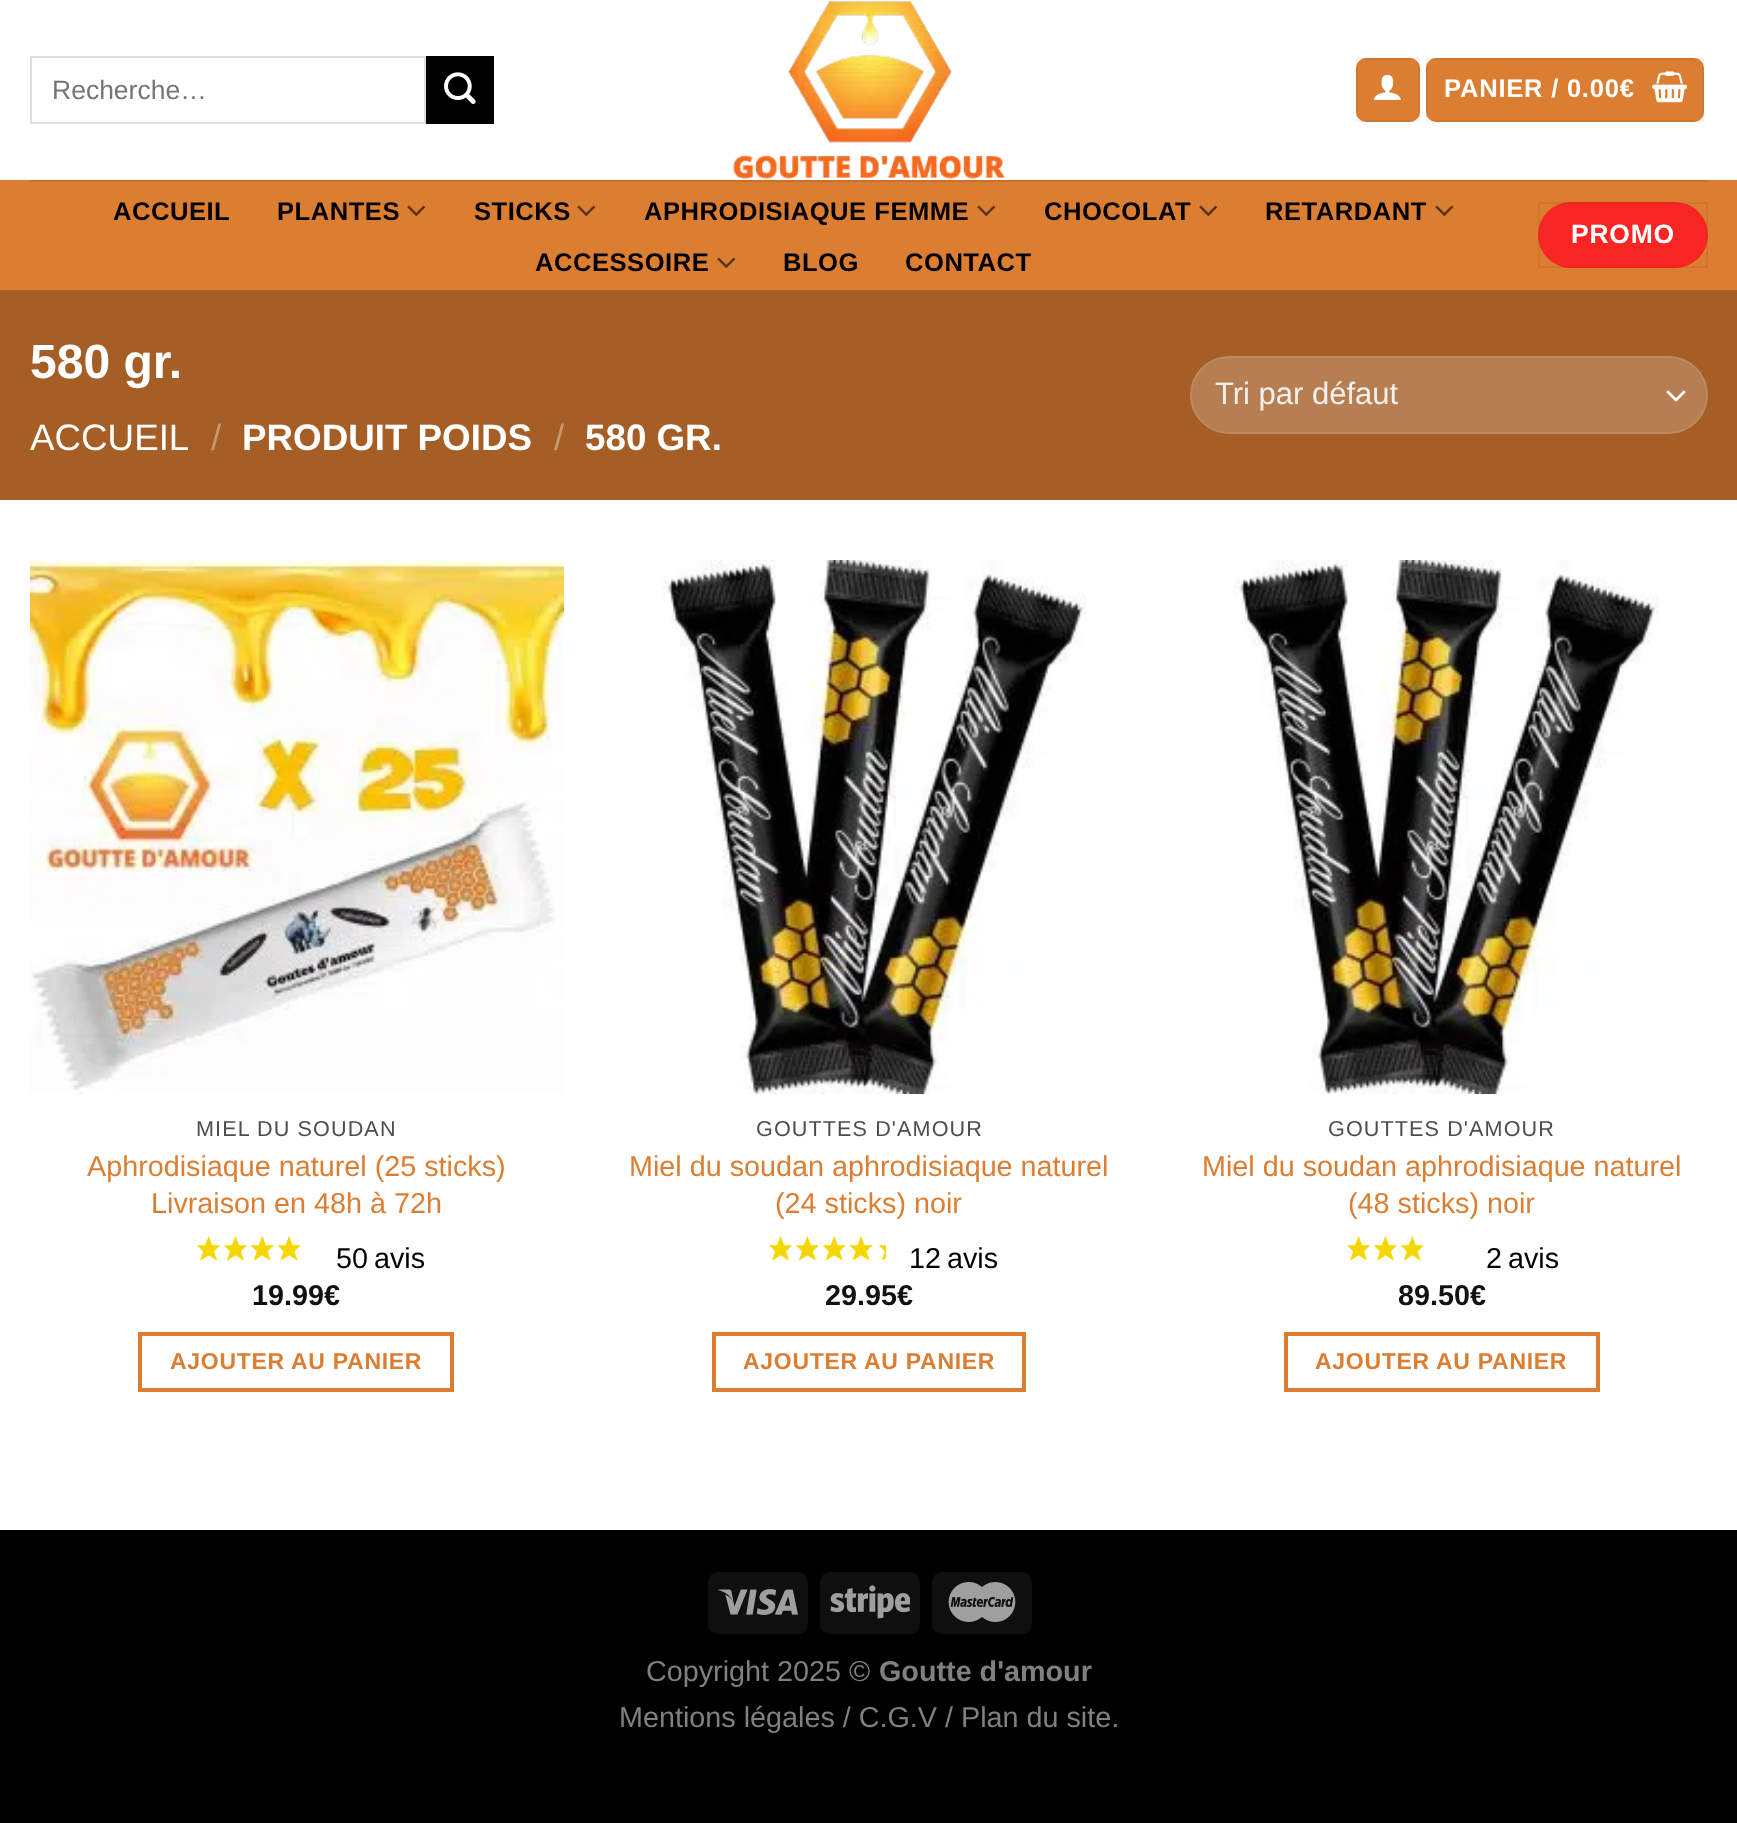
<!DOCTYPE html>
<meta charset="utf-8">
<style>body { margin: 0 } canvas { display: block }</style>
<canvas id="canvas" width="1737" height="1823"></canvas>
<script type="module">
  const canvas = document.getElementById("canvas");
  const g = canvas.getContext("2d");
  g.miterLimit = 4;
  g.fontKerning = "normal";
  function drawText(s, x, y, [font, color]) {
    g.font = font;
    g.fillStyle = color;
    g.fillText(s, x, y);
  }
  function fillBox(x, y, w, h, color) {
    g.fillStyle = color;
    g.fillRect(x, y, w, h);
  }
  function fillRounded(x, y, w, h, r, color) {
    g.fillStyle = color;
    g.beginPath();
    g.roundRect(x, y, w, h, r);
    g.fill();
  }
  async function drawPicture(src, x, y, w, h) {
    const img = new Image();
    img.src = src;
    await img.decode();
    g.drawImage(img, x, y, w, h);
  }

  const s1 = ["26.5px Liberation Sans", "#757575"];
  const s2 = ["bold 25.6px Liberation Sans", "#FFFFFF"];
  const s3 = ["bold 25.6px Liberation Sans", "#000000"];
  const s4 = ["bold 26.5px Liberation Sans", "#FFFFFF"];
  const s5 = ["bold 48px Liberation Sans", "#FFFFFF"];
  const s6 = ["36.75px Liberation Sans", "#FFFFFF"];
  const s7 = ["36.75px Liberation Sans", "#C59772"];
  const s8 = ["bold 36.75px Liberation Sans", "#FFFFFF"];
  const s9 = ["31px Liberation Sans", "#F1F1F1"];
  const s10 = ["21.6px Liberation Sans", "#4D4D4D"];
  const s11 = ["28.75px Liberation Sans", "#DC7E32"];
  const s12 = ["28.75px Liberation Sans", "#000000"];
  const s13 = ["bold 28.75px Liberation Sans", "#111111"];
  const s14 = ["bold 23px Liberation Sans", "#DC7E32"];
  const s15 = ["28.75px Liberation Sans", "#808080"];
  const s16 = ["bold 28.75px Liberation Sans", "#808080"];

  fillBox(0, 0, 1737, 1823, "#000000");
  fillBox(0, 0, 1737, 1530, "#FFFFFF");
  g.strokeStyle = "#DDDDDD";
  g.lineWidth = 2;
  g.strokeRect(31, 57, 394, 66);
  drawText("Recherche…", 52, 99, s1);
  fillBox(426, 56, 68, 68, "#000000");
  await drawPicture("pic1.png", 444, 72, 32, 32);
  await drawPicture("pic2.png", 733, 1, 272, 178);
  fillRounded(1356, 58, 64, 64, 10, "#DC7E32");
  g.strokeStyle = "rgba(0, 0, 0, 0.05)";
  g.strokeRect(1357, 59, 62, 62);
  await drawPicture("pic3.png", 1374, 75, 27, 25);
  fillRounded(1426, 58, 278, 64, 10, "#DC7E32");
  g.strokeRect(1427, 59, 276, 62);
  g.letterSpacing = "0.75px";
  drawText("PANIER / 0.00€", 1444, 97, s2);
  await drawPicture("pic4.png", 1652, 71, 36, 32);
  fillBox(0, 180, 1737, 110, "#DC7E32");
  fillBox(30, 180, 1678, 2, "#C6712D");
  g.letterSpacing = "0.5px";
  drawText("ACCUEIL", 113, 220, s3);
  drawText("PLANTES", 277, 220, s3);
  await drawPicture("pic5.png", 407, 205, 19, 11);
  drawText("STICKS", 474, 220, s3);
  await drawPicture("pic5.png", 577, 205, 19, 11);
  drawText("APHRODISIAQUE FEMME", 644, 220, s3);
  await drawPicture("pic5.png", 977, 205, 19, 11);
  drawText("CHOCOLAT", 1044, 220, s3);
  await drawPicture("pic5.png", 1199, 205, 19, 11);
  drawText("RETARDANT", 1265, 220, s3);
  await drawPicture("pic5.png", 1435, 205, 19, 11);
  drawText("ACCESSOIRE", 535, 271, s3);
  await drawPicture("pic5.png", 717, 257, 19, 11);
  drawText("BLOG", 783, 271, s3);
  drawText("CONTACT", 905, 271, s3);
  fillRounded(1538, 202, 170, 66, 33, "#F82525");
  g.strokeRect(1539, 203, 168, 64);
  g.letterSpacing = "0.75px";
  drawText("PROMO", 1571, 243, s4);
  fillBox(0, 290, 1737, 210, "#A55F26");
  g.letterSpacing = "0px";
  drawText("580 gr.", 30, 378, s5);
  drawText("ACCUEIL", 30, 450, s6);
  drawText("/", 211, 450, s7);
  drawText("PRODUIT POIDS", 242, 450, s8);
  drawText("/", 554, 450, s7);
  drawText("580 GR.", 585, 450, s8);
  fillRounded(1190, 356, 518, 78, 39, "#B77F51");
  g.beginPath();
  g.moveTo(1668, 392);
  g.lineTo(1676, 400);
  g.lineTo(1684, 392);
  g.strokeStyle = "#FFFFFF";
  g.lineWidth = 2.7;
  g.lineCap = "round";
  g.lineJoin = "round";
  g.stroke();
  g.beginPath();
  g.roundRect(1191, 357, 516, 76, 38);
  g.strokeStyle = "rgba(255, 255, 255, 0.09)";
  g.lineWidth = 2;
  g.lineJoin = "miter";
  g.stroke();
  drawText("Tri par défaut", 1215, 404, s9);
  await drawPicture("pic6.png", 30, 560, 534, 534);
  g.letterSpacing = "1.1px";
  drawText("MIEL DU SOUDAN", 196, 1136, s10);
  g.letterSpacing = "0px";
  drawText("Aphrodisiaque naturel (25 sticks)", 87, 1176, s11);
  drawText("Livraison en 48h à 72h", 151, 1213, s11);
  await drawPicture("pic7.png", 197, 1236, 104, 25);
  g.wordSpacing = "-2px";
  drawText("50 avis", 336, 1268, s12);
  g.wordSpacing = "0px";
  drawText("19.99€", 252, 1305, s13);
  g.strokeStyle = "#DC7E32";
  g.lineWidth = 4;
  g.strokeRect(140, 1334, 312, 56);
  g.letterSpacing = "0.7px";
  drawText("AJOUTER AU PANIER", 170, 1369, s14);
  await drawPicture("pic8.png", 662, 560, 425, 534);
  g.letterSpacing = "1.1px";
  drawText("GOUTTES D'AMOUR", 756, 1136, s10);
  g.letterSpacing = "0px";
  drawText("Miel du soudan aphrodisiaque naturel", 629, 1176, s11);
  drawText("(24 sticks) noir", 775, 1213, s11);
  await drawPicture("pic9.png", 769, 1236, 117, 25);
  g.wordSpacing = "-2px";
  drawText("12 avis", 909, 1268, s12);
  g.wordSpacing = "0px";
  drawText("29.95€", 825, 1305, s13);
  g.strokeRect(714, 1334, 310, 56);
  g.letterSpacing = "0.7px";
  drawText("AJOUTER AU PANIER", 743, 1369, s14);
  await drawPicture("pic8.png", 1234, 560, 425, 534);
  g.letterSpacing = "1.1px";
  drawText("GOUTTES D'AMOUR", 1328, 1136, s10);
  g.letterSpacing = "0px";
  drawText("Miel du soudan aphrodisiaque naturel", 1202, 1176, s11);
  drawText("(48 sticks) noir", 1348, 1213, s11);
  await drawPicture("pic10.png", 1347, 1236, 81, 25);
  g.wordSpacing = "-2px";
  drawText("2 avis", 1486, 1268, s12);
  g.wordSpacing = "0px";
  drawText("89.50€", 1398, 1305, s13);
  g.strokeRect(1286, 1334, 312, 56);
  g.letterSpacing = "0.7px";
  drawText("AJOUTER AU PANIER", 1315, 1369, s14);
  fillRounded(708, 1572, 100, 62, 10, "#0F0F0F");
  await drawPicture("pic11.png", 718, 1589, 80, 26);
  fillRounded(820, 1572, 100, 62, 10, "#0F0F0F");
  await drawPicture("pic12.png", 830, 1585, 80, 34);
  fillRounded(932, 1572, 100, 62, 10, "#0F0F0F");
  await drawPicture("pic13.png", 948, 1582, 68, 40);
  g.letterSpacing = "0px";
  drawText("Copyright 2025 ©", 646, 1681, s15);
  drawText("Goutte d'amour", 879, 1681, s16);
  drawText("Mentions légales / C.G.V / Plan du site.", 619, 1727, s15);
</script>
